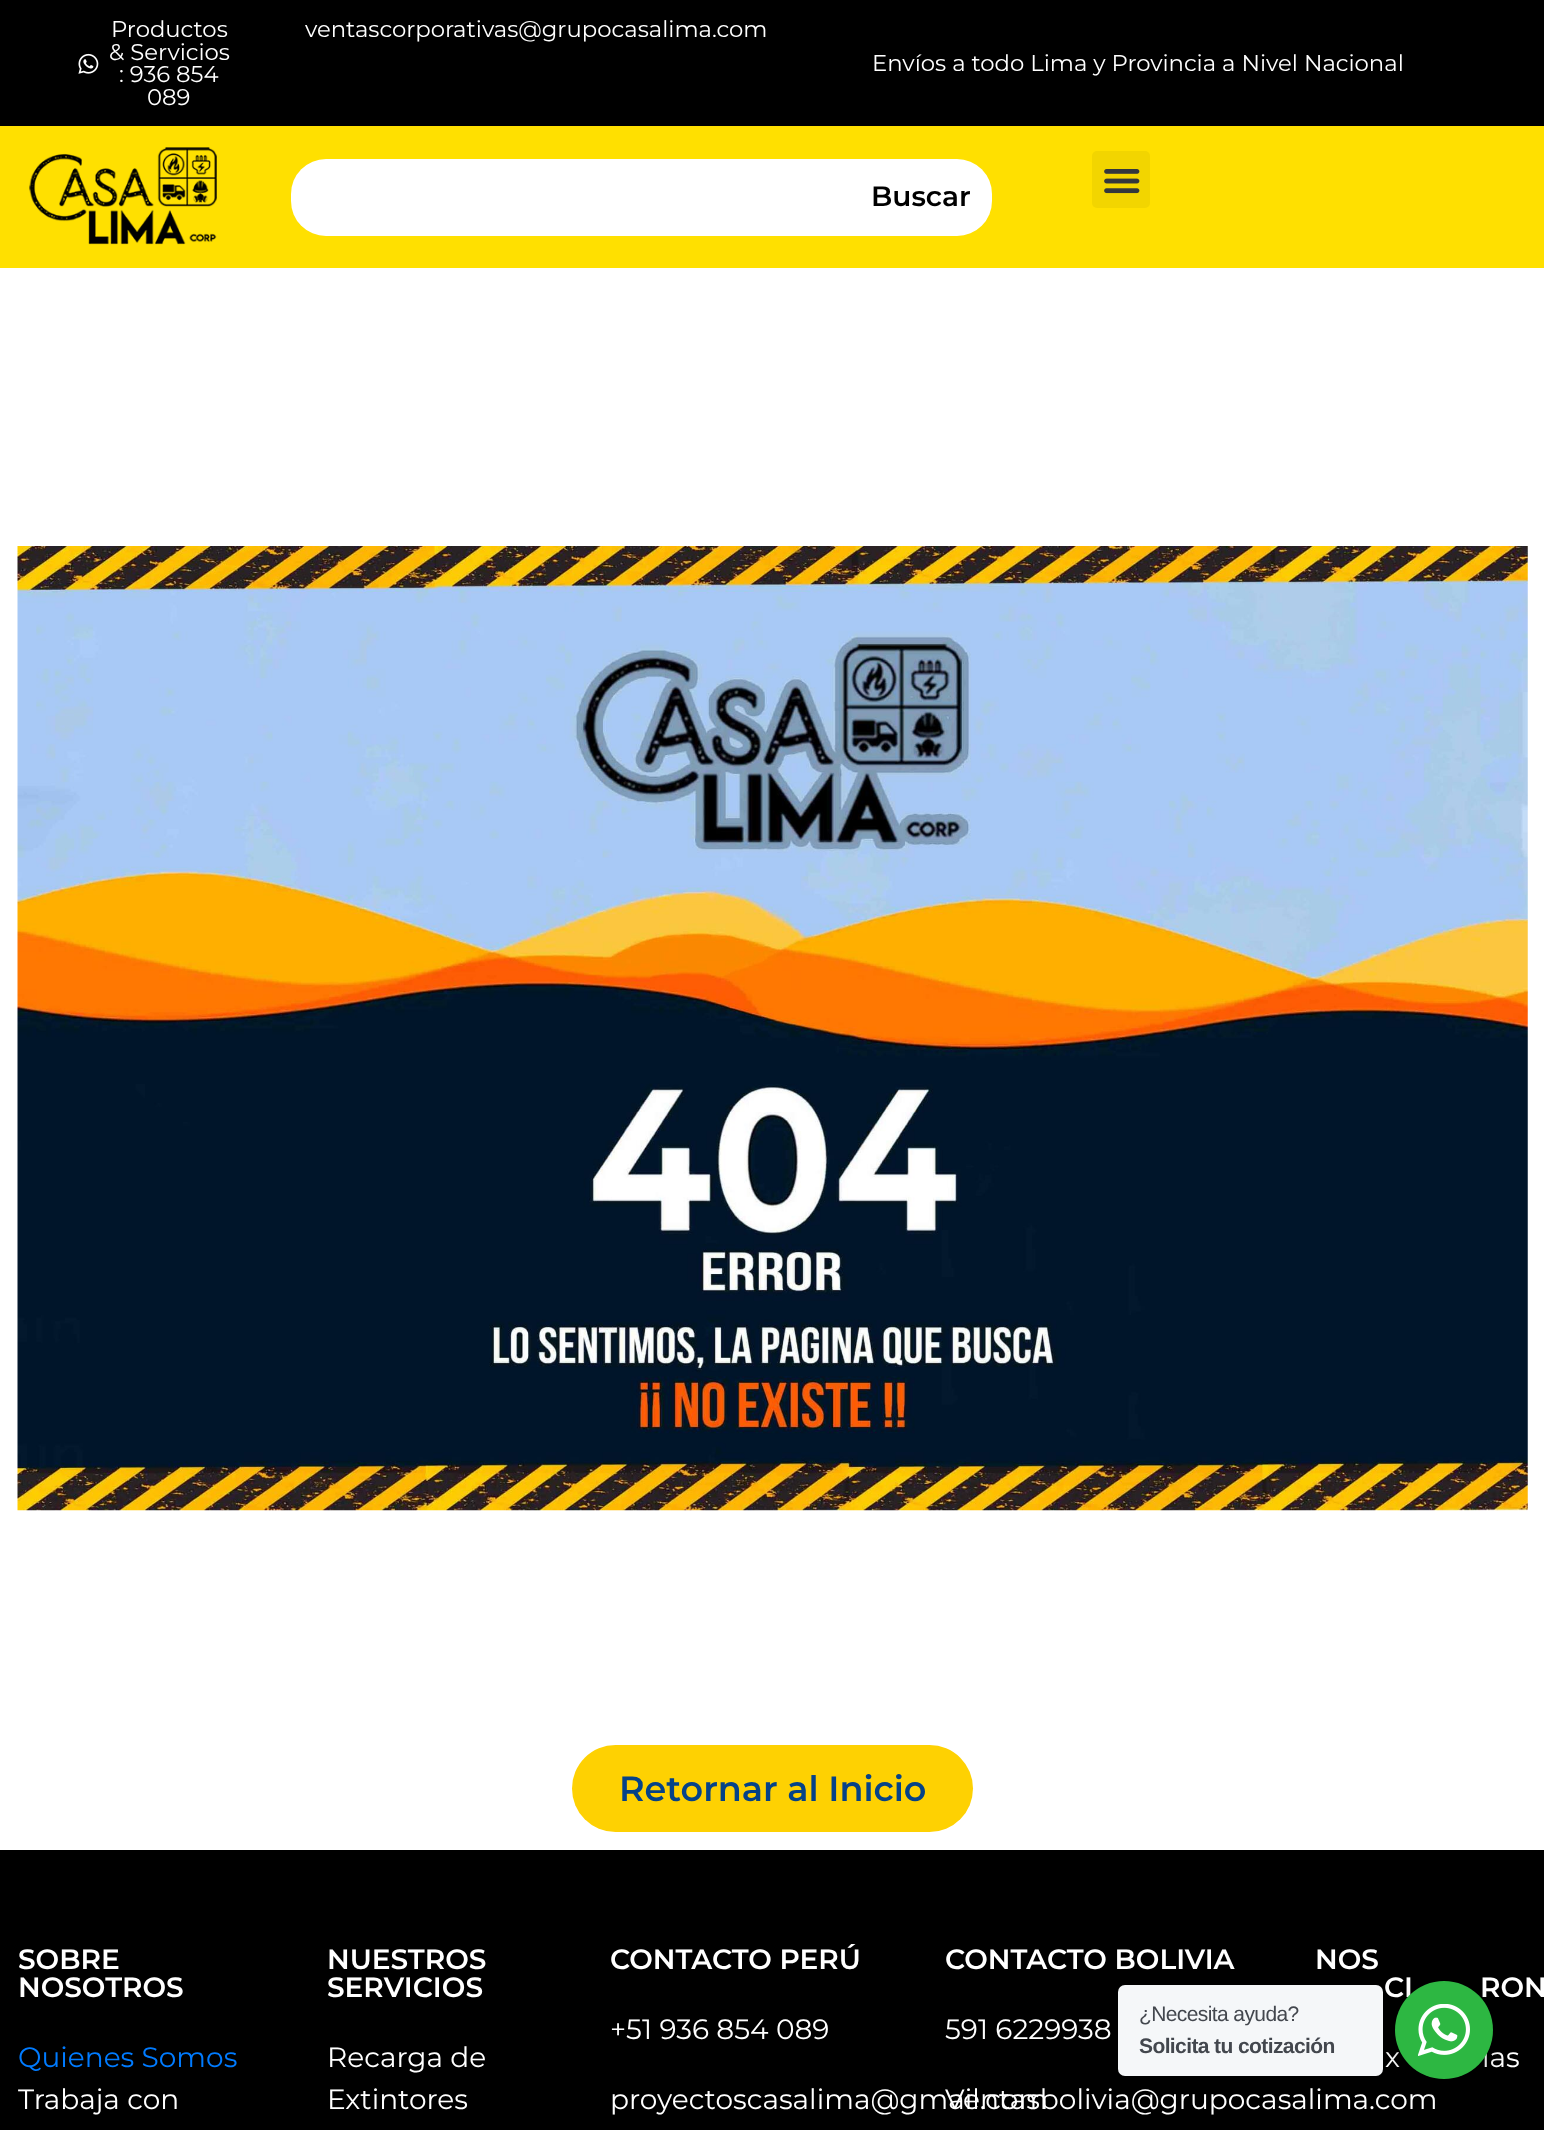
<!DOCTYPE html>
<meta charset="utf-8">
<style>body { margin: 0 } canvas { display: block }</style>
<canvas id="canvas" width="1544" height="2130"></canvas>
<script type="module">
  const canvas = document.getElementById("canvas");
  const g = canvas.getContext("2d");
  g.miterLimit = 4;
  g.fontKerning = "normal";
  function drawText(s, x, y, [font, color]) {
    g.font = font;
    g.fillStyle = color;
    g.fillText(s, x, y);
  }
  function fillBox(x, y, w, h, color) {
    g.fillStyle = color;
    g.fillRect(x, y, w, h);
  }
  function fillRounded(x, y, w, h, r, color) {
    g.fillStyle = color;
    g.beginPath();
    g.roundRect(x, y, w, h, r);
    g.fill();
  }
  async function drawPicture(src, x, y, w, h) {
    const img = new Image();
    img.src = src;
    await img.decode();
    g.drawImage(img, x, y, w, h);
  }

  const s1 = ["22.75px Montserrat", "#FFFFFF"];
  const s2 = ["600 28px Montserrat", "#000000"];
  const s3 = ["600 35px Montserrat", "#054288"];
  const s4 = ["600 28px Montserrat", "#FFFFFF"];
  const s5 = ["28px Montserrat", "#007BFF"];
  const s6 = ["28px Montserrat", "#FFFFFF"];
  const s7 = ["21px Liberation Sans", "#43474E"];
  const s8 = ["bold 21px Liberation Sans", "#43474E"];

  fillBox(0, 0, 1544, 2130, "#FFFFFF");
  fillBox(0, 0, 1544, 126, "#000000");
  await drawPicture("pic1.png", 78, 53, 21, 21);
  drawText("Productos", 111, 37, s1);
  drawText("& Servicios", 109, 60, s1);
  drawText(": 936 854", 119, 82, s1);
  drawText("089", 147, 105, s1);
  drawText("ventascorporativas@grupocasalima.com", 305, 37, s1);
  drawText("Envíos a todo Lima y Provincia a Nivel Nacional", 872, 71, s1);
  fillBox(0, 126, 1544, 142, "#FFE000");
  await drawPicture("pic2.png", 29, 147, 188, 98);
  g.fillStyle = "#FFFFFF";
  g.beginPath();
  g.roundRect(291, 159, 561, 77, [35, 0, 0, 35]);
  g.fill();
  g.beginPath();
  g.roundRect(852, 159, 140, 77, [0, 35, 35, 0]);
  g.fill();
  drawText("Buscar", 871, 206, s2);
  fillRounded(1092, 151, 58, 57, 5, "#F2D500");
  await drawPicture("pic3.png", 1104, 169, 36, 25);
  await drawPicture("pic4.png", 17, 546, 1511, 965);
  fillRounded(572, 1745, 401, 87, 43.5, "#FED102");
  drawText("Retornar al Inicio", 619, 1801, s3);
  fillBox(0, 1850, 1544, 280, "#000000");
  drawText("SOBRE", 18, 1969, s4);
  drawText("NOSOTROS", 18, 1997, s4);
  drawText("Quienes Somos", 18, 2067, s5);
  drawText("Trabaja con", 18, 2109, s6);
  drawText("NUESTROS", 327, 1969, s4);
  drawText("SERVICIOS", 327, 1997, s4);
  drawText("Recarga de", 327, 2067, s6);
  drawText("Extintores", 327, 2109, s6);
  drawText("CONTACTO PERÚ", 610, 1969, s4);
  drawText("+51 936 854 089", 610, 2039, s6);
  drawText("proyectoscasalima@gmail.com", 610, 2109, s6);
  drawText("CONTACTO BOLIVIA", 945, 1969, s4);
  drawText("591 6229938", 945, 2039, s6);
  drawText("Ventasbolivia@grupocasalima.com", 945, 2109, s6);
  drawText("NOS", 1315, 1969, s4);
  drawText("CI", 1384, 1997, s4);
  drawText("RON", 1480, 1997, s4);
  drawText("x", 1385, 2067, s6);
  drawText("ias", 1482, 2067, s6);
  g.fillStyle = "rgba(0, 0, 0, 0.14)";
  g.filter = "blur(7px)";
  g.beginPath();
  g.roundRect(1391, 1988, 105, 105, 52.5);
  g.fill();
  g.filter = "none";
  fillRounded(1118, 1985, 265, 91, 7, "#F5F7F9");
  g.letterSpacing = "-0.6px";
  drawText("¿Necesita ayuda?", 1139, 2021, s7);
  drawText("Solicita tu cotización", 1139, 2053, s8);
  g.fillStyle = "#2DB742";
  g.beginPath();
  g.arc(1444, 2030, 49, 0, Math.PI * 2);
  g.fill();
  await drawPicture("pic5.png", 1418, 2004, 52, 52);
</script>
